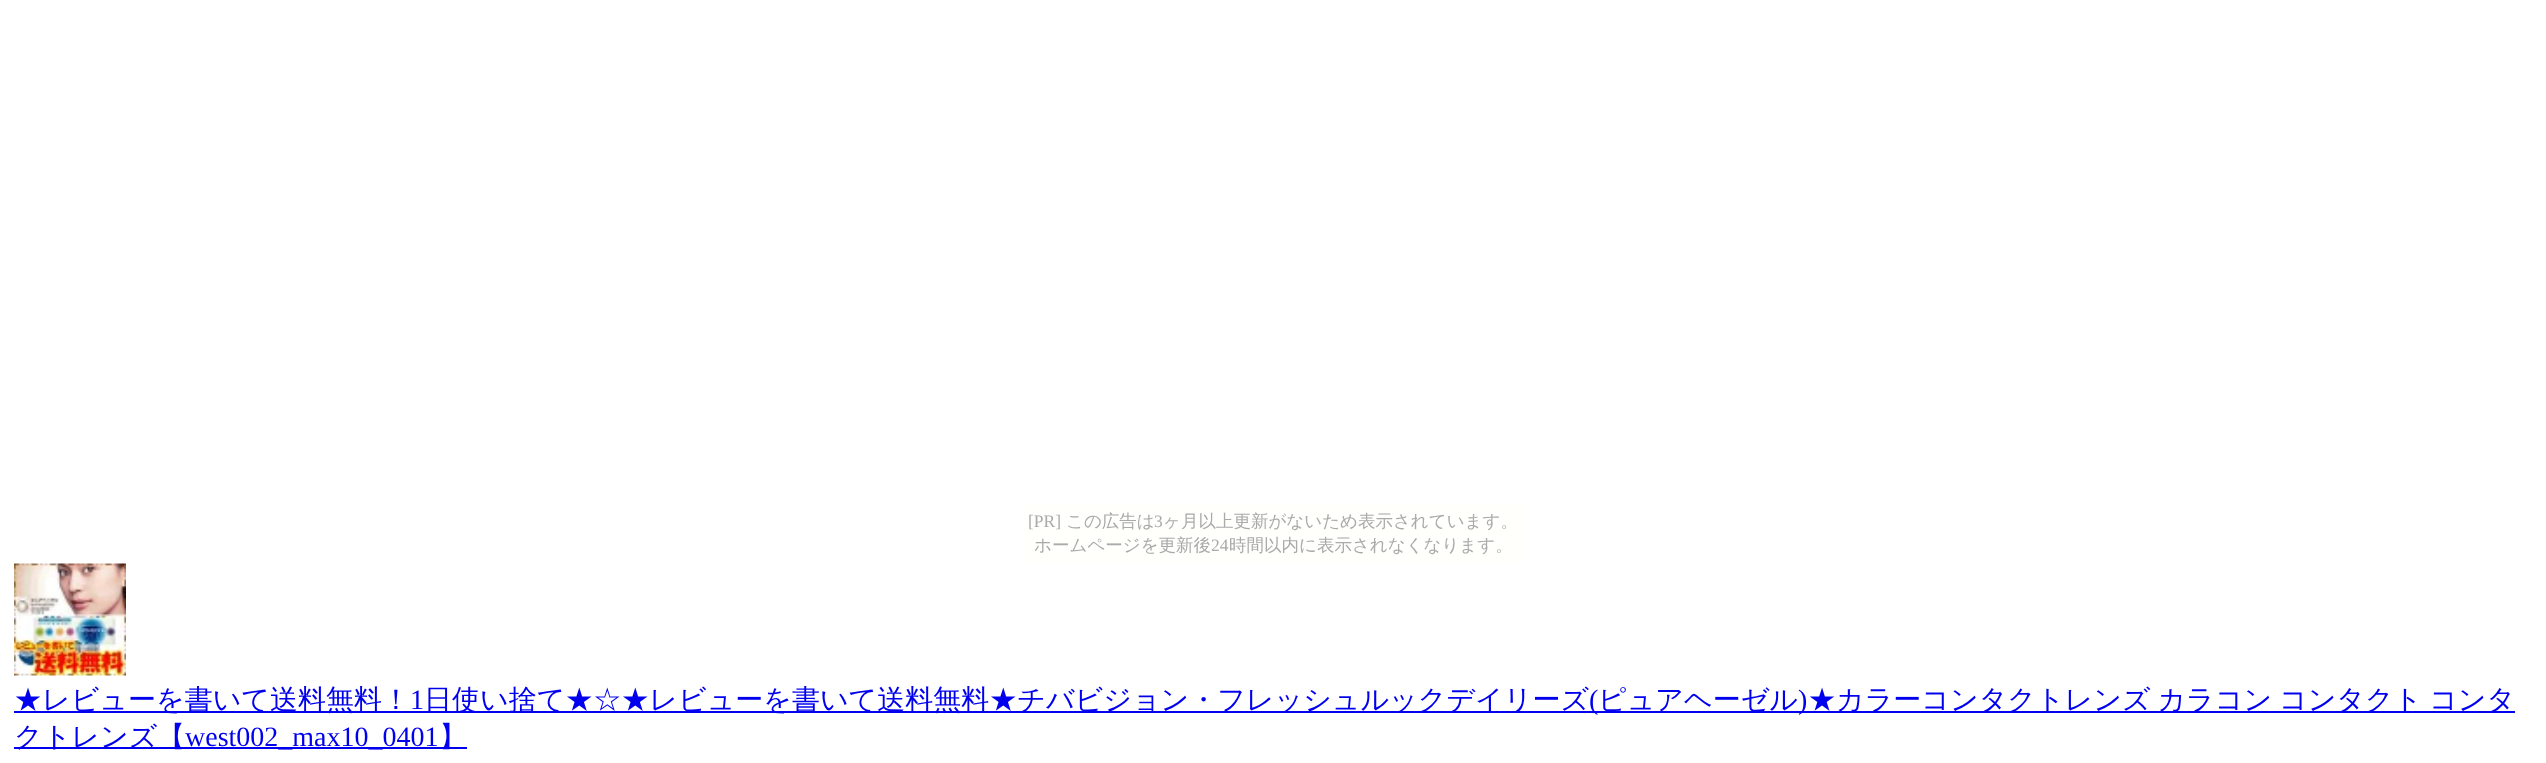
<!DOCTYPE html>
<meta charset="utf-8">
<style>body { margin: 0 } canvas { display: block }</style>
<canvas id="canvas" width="2546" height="763"></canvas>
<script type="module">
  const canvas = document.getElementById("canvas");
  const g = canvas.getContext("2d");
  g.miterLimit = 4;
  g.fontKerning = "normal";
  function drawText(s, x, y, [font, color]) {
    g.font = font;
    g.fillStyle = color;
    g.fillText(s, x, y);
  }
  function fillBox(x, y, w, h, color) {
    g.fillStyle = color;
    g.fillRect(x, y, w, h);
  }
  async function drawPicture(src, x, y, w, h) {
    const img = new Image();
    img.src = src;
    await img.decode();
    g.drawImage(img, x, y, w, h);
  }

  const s1 = ["17.5px Liberation Serif", "#AAAAAA"];
  const s2 = ["500 17.5px WenQuanYi Zen Hei", "#AAAAAA"];
  const s3 = ["500 28px WenQuanYi Zen Hei", "#0000EE"];
  const s4 = ["28px Liberation Serif", "#0000EE"];

  fillBox(0, 0, 2546, 763, "#FFFFFF");
  fillBox(1024, 504, 499, 60, "#FFFFFC");
  drawText("[PR]", 1028, 527, s1);
  drawText("この広告は", 1066, 527, s2);
  drawText("3", 1154, 527, s1);
  drawText("ヶ月以上更新がないため表示されています。", 1163, 527, s2);
  drawText("ホームページを更新後", 1034, 551, s2);
  drawText("24", 1211, 551, s1);
  drawText("時間以内に表示されなくなります。", 1229, 551, s2);
  await drawPicture("pic1.png", 14, 563, 112, 113);
  fillBox(14, 711, 2501, 2, "#0000EE");
  drawText("★レビューを書いて送料無料！", 14, 709, s3);
  drawText("1", 410, 709, s4);
  drawText("日使い捨て★☆★レビューを書いて送料無料★チバビジョン・フレッシュルックデイリーズ", 424, 709, s3);
  drawText("(", 1589, 709, s4);
  drawText("ピュアヘーゼル", 1598, 709, s3);
  drawText(")", 1798, 709, s4);
  g.wordSpacing = "-1.5px";
  drawText("★カラーコンタクトレンズ カラコン コンタクト コンタ", 1808, 709, s3);
  fillBox(14, 747, 453, 2, "#0000EE");
  g.wordSpacing = "0px";
  drawText("クトレンズ【", 14, 746, s3);
  drawText("west002_max10_0401", 185, 746, s4);
  drawText("】", 439, 746, s3);
</script>
